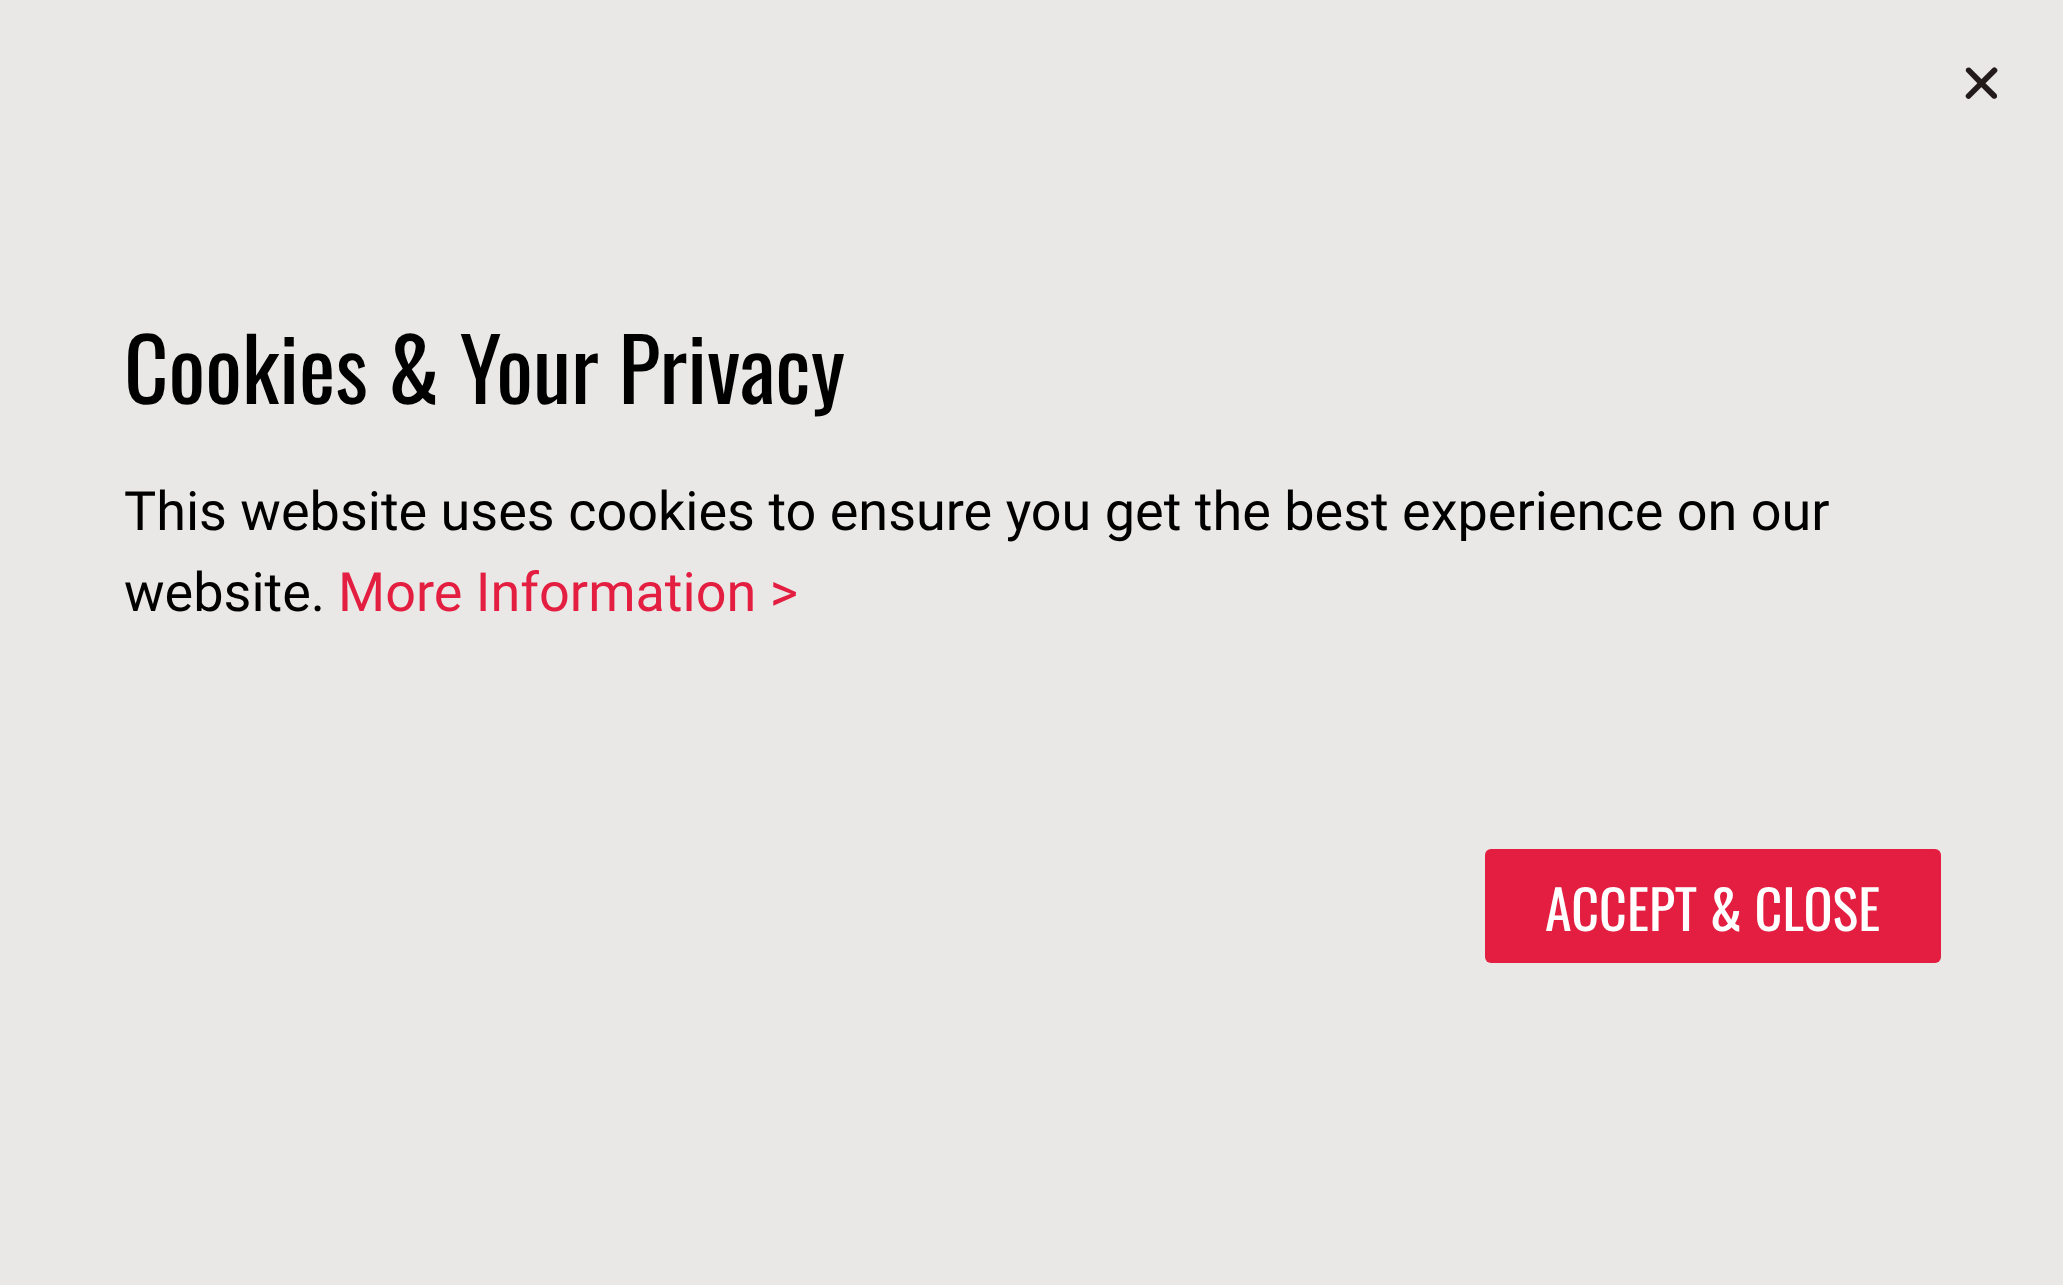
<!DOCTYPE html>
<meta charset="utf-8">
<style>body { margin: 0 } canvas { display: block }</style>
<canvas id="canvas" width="2063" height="1285"></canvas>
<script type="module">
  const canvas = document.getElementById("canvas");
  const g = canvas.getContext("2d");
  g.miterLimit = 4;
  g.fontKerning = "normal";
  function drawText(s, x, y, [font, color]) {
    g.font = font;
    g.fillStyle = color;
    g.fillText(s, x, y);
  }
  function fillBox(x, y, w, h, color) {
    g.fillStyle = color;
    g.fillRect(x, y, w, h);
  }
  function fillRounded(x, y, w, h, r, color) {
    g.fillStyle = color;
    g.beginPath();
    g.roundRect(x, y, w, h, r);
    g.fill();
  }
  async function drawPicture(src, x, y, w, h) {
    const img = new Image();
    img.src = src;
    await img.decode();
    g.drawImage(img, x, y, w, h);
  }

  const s1 = ["86.5px Oswald", "#000000"];
  const s2 = ["54px Roboto", "#000000"];
  const s3 = ["54px Roboto", "#E31E40"];
  const s4 = ["54px Oswald", "#FFFFFF"];

  fillBox(0, 0, 2063, 1285, "#E9E8E6");
  await drawPicture("pic1.png", 1965, 67, 33, 32);
  drawText("Cookies & Your Privacy", 124, 404, s1);
  drawText("This website uses cookies to ensure you get the best experience on our", 124, 530, s2);
  drawText("website.", 124, 611, s2);
  drawText("More Information >", 338, 611, s3);
  fillRounded(1485, 849, 456, 114, 6, "#E31E40");
  drawText("ACCEPT & CLOSE", 1545, 931, s4);
</script>
